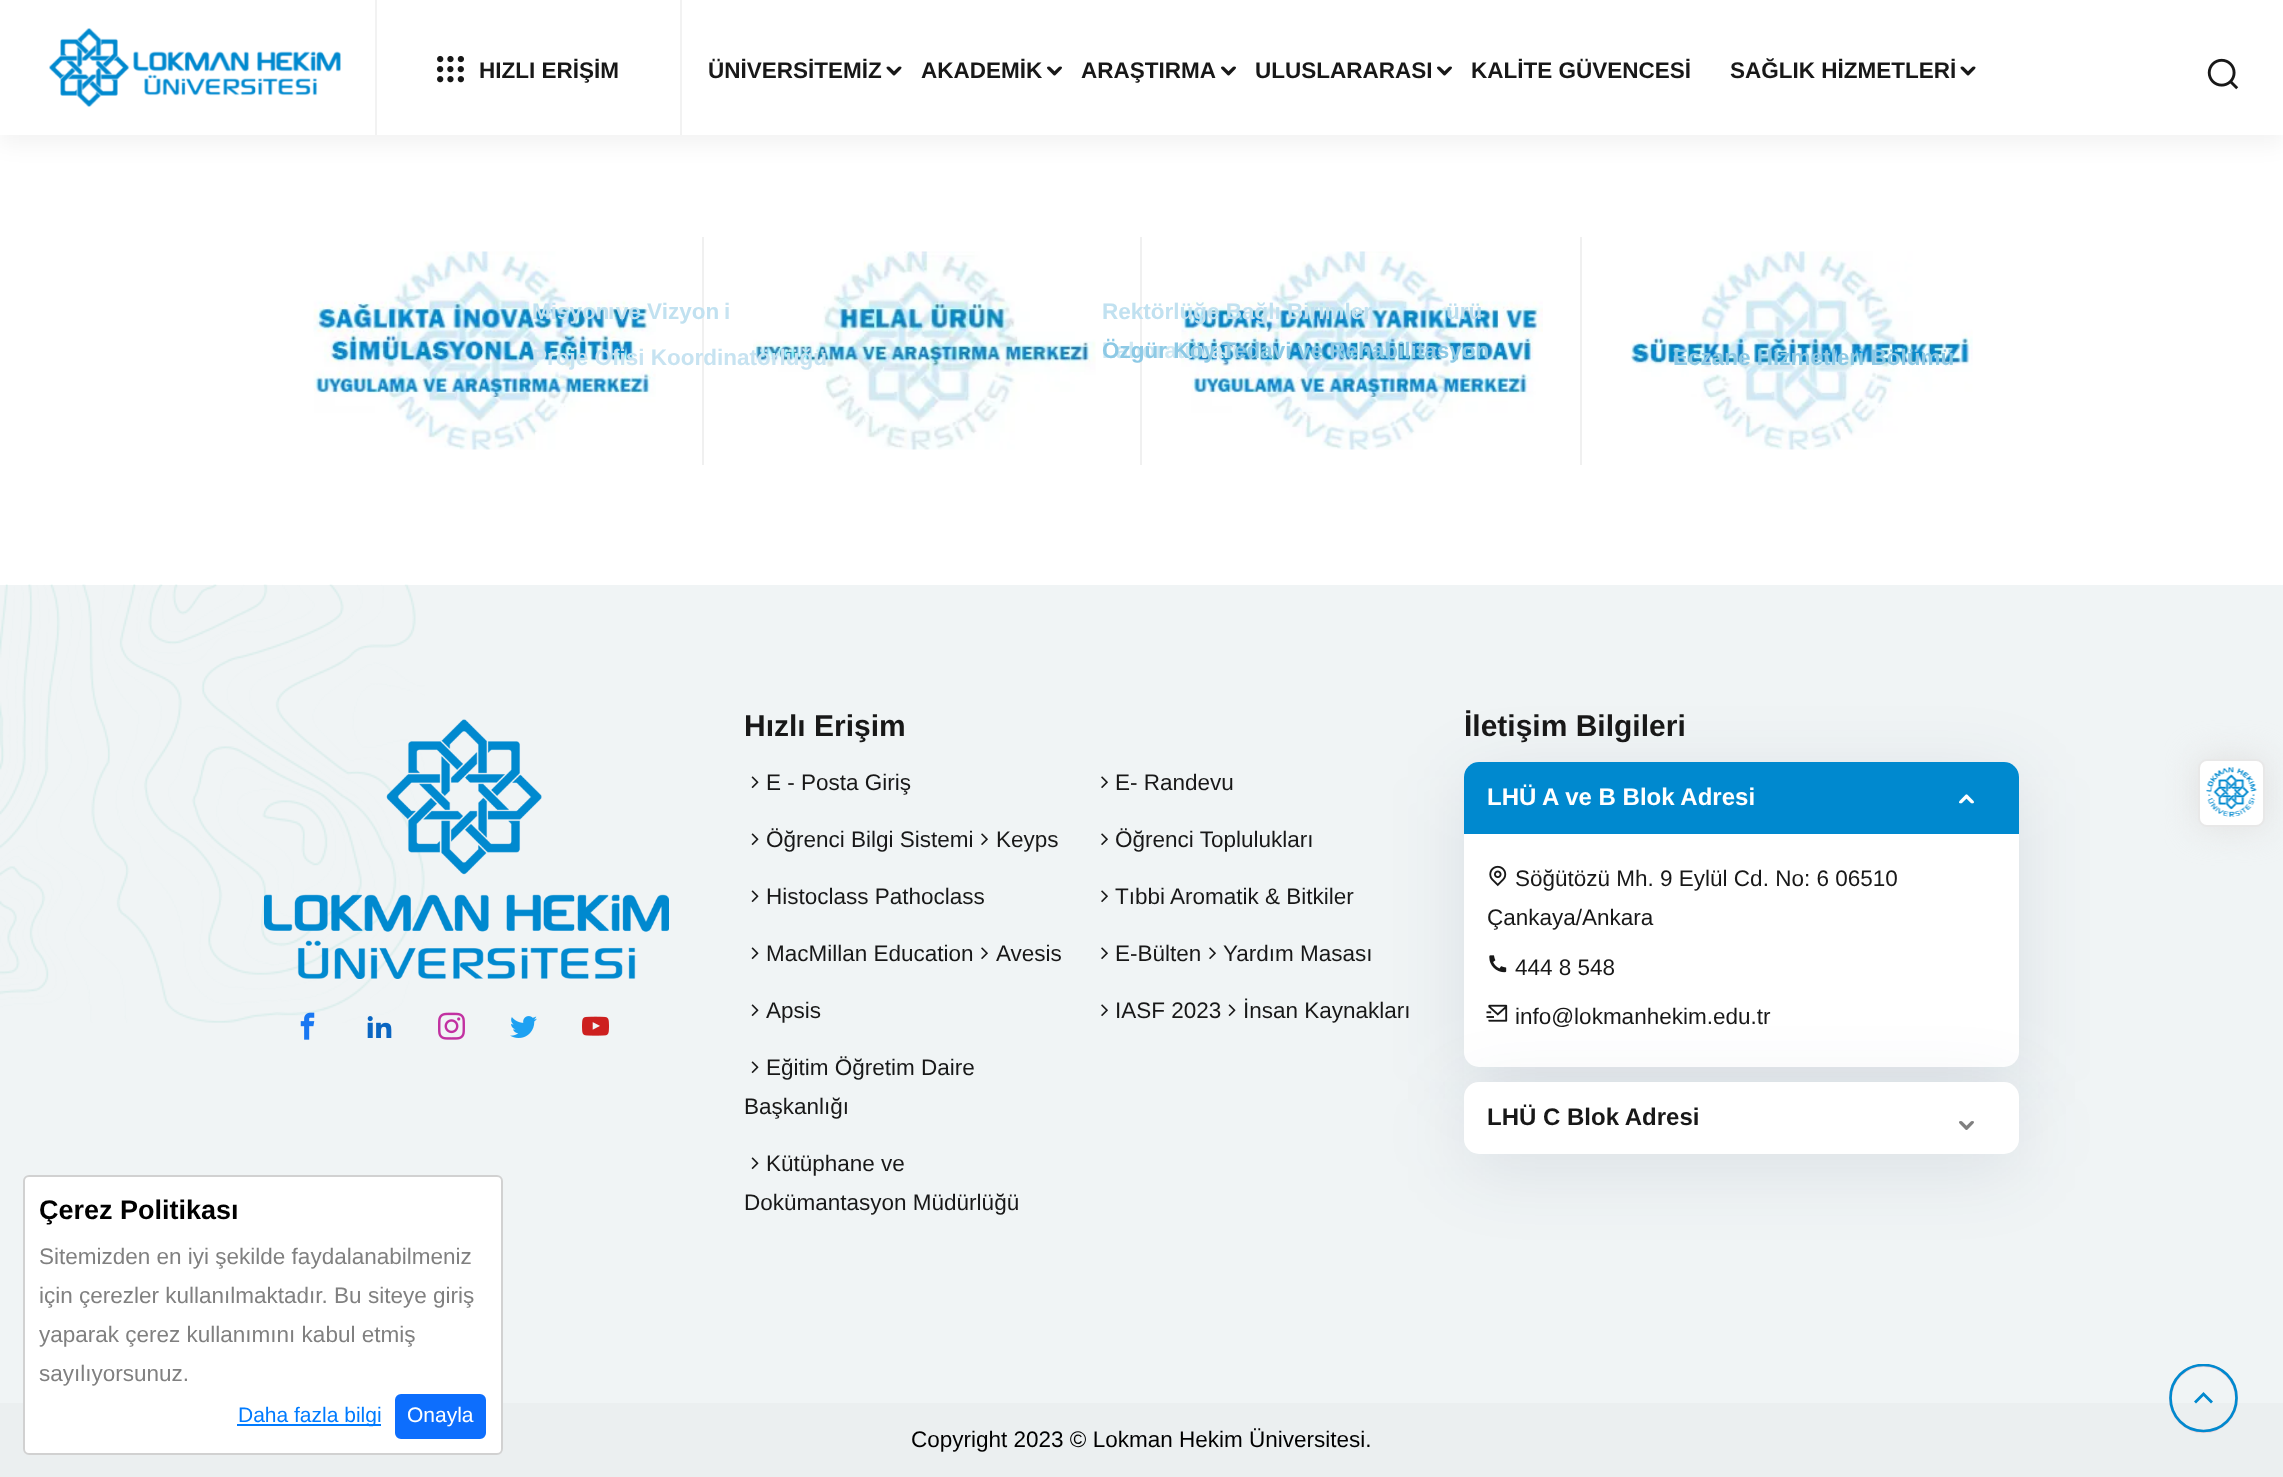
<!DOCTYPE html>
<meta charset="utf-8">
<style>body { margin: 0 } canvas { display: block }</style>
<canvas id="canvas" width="2283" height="1477"></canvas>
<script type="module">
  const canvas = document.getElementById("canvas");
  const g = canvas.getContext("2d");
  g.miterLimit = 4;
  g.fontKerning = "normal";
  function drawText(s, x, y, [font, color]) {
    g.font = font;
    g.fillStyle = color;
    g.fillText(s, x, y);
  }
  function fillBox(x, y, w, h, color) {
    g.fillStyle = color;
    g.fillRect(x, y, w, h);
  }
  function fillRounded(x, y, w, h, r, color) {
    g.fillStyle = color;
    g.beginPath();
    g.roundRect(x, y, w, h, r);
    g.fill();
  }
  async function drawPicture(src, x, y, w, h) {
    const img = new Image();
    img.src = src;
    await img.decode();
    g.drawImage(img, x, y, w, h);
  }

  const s1 = ["bold 22.5px Liberation Sans", "#181818"];
  const s2 = ["bold 22.5px Liberation Sans", "#C1E1F0"];
  const s3 = ["bold 22.5px Liberation Sans", "#C7E3F1"];
  const s4 = ["bold 22.5px Liberation Sans", "#8DC9E5"];
  const s5 = ["bold 22.5px Liberation Sans", "#CFE8F3"];
  const s6 = ["bold 22.5px Liberation Sans", "#BADDEE"];
  const s7 = ["bold 30px Liberation Sans", "#181818"];
  const s8 = ["22.5px Liberation Sans", "#181818"];
  const s9 = ["bold 24px Liberation Sans", "#FFFFFF"];
  const s10 = ["bold 24px Liberation Sans", "#181818"];
  const s11 = ["22.5px Liberation Sans", "#000000"];
  const s12 = ["bold 27px Liberation Sans", "#000000"];
  const s13 = ["22.5px Liberation Sans", "#808080"];
  const s14 = ["21px Liberation Sans", "#007BFF"];
  const s15 = ["21px Liberation Sans", "#FFFFFF"];

  fillBox(0, 0, 2283, 1477, "#FFFFFF");
  g.fillStyle = "rgba(0, 0, 0, 0.05)";
  g.filter = "blur(11px)";
  g.beginPath();
  g.rect(0, 9, 2283, 135);
  g.fill();
  g.filter = "none";
  fillBox(0, 0, 2283, 135, "#FFFFFF");
  await drawPicture("pic1.png", 49, 28, 292, 79);
  fillBox(680, 0, 2, 135, "#F2F2F2");
  fillBox(375, 0, 2, 135, "#F2F2F2");
  await drawPicture("pic2.png", 436, 55, 28, 28);
  drawText("HIZLI ERİŞİM", 479, 78, s1);
  drawText("ÜNİVERSİTEMİZ", 708, 78, s1);
  await drawPicture("pic3.png", 886, 66, 16, 10);
  fillBox(702, 237, 2, 228, "#F0F0F0");
  await drawPicture("pic6.png", 313, 251, 343, 199);
  drawText("Misyon ve Vizyon", 532, 319, s2);
  fillBox(1140, 237, 2, 228, "#F0F0F0");
  await drawPicture("pic8.png", 1181, 251, 362, 199);
  drawText("Rektörlüğe Bağlı Birimler", 1102, 319, s2);
  drawText("AKADEMİK", 921, 78, s1);
  await drawPicture("pic4.png", 1047, 66, 15, 10);
  drawText("ı", 608, 319, s3);
  drawText("i", 724, 319, s3);
  await drawPicture("pic9.png", 1630, 251, 343, 199);
  drawText("Eczane Hizmetleri Bölümü", 1673, 365, s4);
  drawText("SAĞLIK HİZMETLERİ", 1730, 78, s1);
  await drawPicture("pic3.png", 1960, 66, 16, 10);
  drawText("Laboratuvarı", 1102, 358, s5);
  drawText("Özgür Köy Tedavi ve Rehabilitasyon", 1102, 358, s4);
  drawText("ARAŞTIRMA", 1081, 78, s1);
  await drawPicture("pic4.png", 1221, 66, 15, 10);
  await drawPicture("pic7.png", 753, 251, 343, 199);
  drawText("Proje Ofisi Koordinatörlüğü", 532, 365, s3);
  drawText("ürü", 1446, 319, s6);
  drawText("KALİTE GÜVENCESİ", 1471, 78, s1);
  drawText("ULUSLARARASI", 1255, 78, s1);
  await drawPicture("pic4.png", 1437, 66, 15, 10);
  await drawPicture("pic5.png", 2207, 58, 32, 32);
  fillBox(1580, 237, 2, 228, "#F0F0F0");
  fillBox(0, 585, 2283, 818, "#F0F4F5");
  await drawPicture("pic10.png", 0, 584, 425, 439);
  await drawPicture("pic11.png", 264, 719, 405, 260);
  await drawPicture("pic12.png", 300, 1012, 15, 28);
  await drawPicture("pic13.png", 367, 1016, 25, 22);
  await drawPicture("pic14.png", 438, 1012, 27, 28);
  await drawPicture("pic15.png", 510, 1016, 27, 22);
  await drawPicture("pic16.png", 582, 1016, 27, 20);
  drawText("Hızlı Erişim", 744, 736, s7);
  await drawPicture("pic17.png", 751, 776, 8, 13);
  drawText("E - Posta Giriş", 766, 790, s8);
  await drawPicture("pic17.png", 751, 833, 8, 13);
  drawText("Öğrenci Bilgi Sistemi", 766, 847, s8);
  await drawPicture("pic18.png", 981, 833, 7, 13);
  drawText("Keyps", 996, 847, s8);
  await drawPicture("pic17.png", 751, 890, 8, 13);
  drawText("Histoclass Pathoclass", 766, 904, s8);
  await drawPicture("pic17.png", 751, 947, 8, 13);
  drawText("MacMillan Education", 766, 961, s8);
  await drawPicture("pic18.png", 981, 947, 7, 13);
  drawText("Avesis", 996, 961, s8);
  await drawPicture("pic17.png", 751, 1004, 8, 13);
  drawText("Apsis", 766, 1018, s8);
  await drawPicture("pic17.png", 751, 1061, 8, 13);
  drawText("Eğitim Öğretim Daire", 766, 1075, s8);
  drawText("Başkanlığı", 744, 1114, s8);
  await drawPicture("pic17.png", 751, 1157, 8, 13);
  drawText("Kütüphane ve", 766, 1171, s8);
  drawText("Dokümantasyon Müdürlüğü", 744, 1210, s8);
  await drawPicture("pic18.png", 1101, 776, 7, 13);
  drawText("E- Randevu", 1115, 790, s8);
  await drawPicture("pic18.png", 1101, 833, 7, 13);
  drawText("Öğrenci Toplulukları", 1115, 847, s8);
  await drawPicture("pic18.png", 1101, 890, 7, 13);
  g.fillStyle = "rgba(26, 46, 85, 0.1)";
  g.filter = "blur(37.5px)";
  g.beginPath();
  g.roundRect(1464, 777, 555, 305, 15);
  g.fill();
  g.filter = "none";
  drawText("Tıbbi Aromatik & Bitkiler", 1115, 904, s8);
  await drawPicture("pic18.png", 1101, 947, 7, 13);
  drawText("E-Bülten", 1115, 961, s8);
  await drawPicture("pic18.png", 1209, 947, 7, 13);
  drawText("Yardım Masası", 1223, 961, s8);
  await drawPicture("pic18.png", 1101, 1004, 7, 13);
  drawText("IASF 2023", 1115, 1018, s8);
  await drawPicture("pic17.png", 1228, 1004, 8, 13);
  fillRounded(1464, 762, 555, 305, 15, "#FFFFFF");
  g.fillStyle = "rgba(26, 46, 85, 0.1)";
  g.filter = "blur(37.5px)";
  g.beginPath();
  g.roundRect(1464, 1097, 555, 72, 15);
  g.fill();
  g.filter = "none";
  drawText("İnsan Kaynakları", 1243, 1018, s8);
  drawText("İletişim Bilgileri", 1464, 736, s7);
  g.fillStyle = "#0089CF";
  g.beginPath();
  g.roundRect(1464, 762, 555, 72, [15, 15, 0, 0]);
  g.fill();
  drawText("LHÜ A ve B Blok Adresi", 1487, 805, s9);
  await drawPicture("pic19.png", 1959, 794, 15, 10);
  await drawPicture("pic20.png", 1489, 865, 18, 22);
  drawText("Söğütözü Mh. 9 Eylül Cd. No: 6 06510", 1515, 886, s8);
  drawText("Çankaya/Ankara", 1487, 925, s8);
  await drawPicture("pic21.png", 1489, 955, 18, 18);
  drawText("444 8 548", 1515, 975, s8);
  await drawPicture("pic22.png", 1486, 1004, 22, 18);
  drawText("info@lokmanhekim.edu.tr", 1515, 1024, s8);
  fillRounded(1464, 1082, 555, 72, 15, "#FFFFFF");
  drawText("LHÜ C Blok Adresi", 1487, 1125, s10);
  await drawPicture("pic23.png", 1959, 1121, 15, 9);
  fillBox(0, 1403, 2283, 74, "#EBEFF0");
  drawText("Copyright 2023 © Lokman Hekim Üniversitesi.", 911, 1447, s11);
  g.fillStyle = "#E0E0E0";
  g.filter = "blur(16.5px)";
  g.beginPath();
  g.roundRect(2198, 759, 67, 68, 9);
  g.fill();
  g.filter = "none";
  g.fillStyle = "#FFFFFF";
  g.beginPath();
  g.roundRect(2199, 760, 65, 66, 8);
  g.fill();
  g.strokeStyle = "#E8E8E8";
  g.lineWidth = 2;
  g.stroke();
  await drawPicture("pic24.png", 2206, 767, 51, 50);
  fillRounded(23, 1175, 480, 280, 6, "#FFFFFF");
  g.beginPath();
  g.roundRect(24, 1176, 478, 278, 5);
  g.strokeStyle = "rgba(0, 0, 0, 0.18)";
  g.stroke();
  drawText("Çerez Politikası", 39, 1219, s12);
  drawText("Sitemizden en iyi şekilde faydalanabilmeniz", 39, 1264, s13);
  drawText("için çerezler kullanılmaktadır. Bu siteye giriş", 39, 1303, s13);
  drawText("yaparak çerez kullanımını kabul etmiş", 39, 1342, s13);
  drawText("sayılıyorsunuz.", 39, 1381, s13);
  fillBox(237, 1424, 144, 2, "#007BFF");
  drawText("Daha fazla bilgi", 238, 1422, s14);
  g.fillStyle = "#0D6EFD";
  g.beginPath();
  g.roundRect(396, 1395, 89, 43, 5);
  g.fill();
  g.strokeStyle = "#0D6EFD";
  g.stroke();
  drawText("Onayla", 407, 1422, s15);
  g.beginPath();
  g.arc(2203.5, 1398.5, 33, 0, Math.PI * 2);
  g.strokeStyle = "rgba(255, 71, 87, 0.2)";
  g.lineWidth = 3;
  g.stroke();
  g.save();
  g.beginPath();
  g.rect(2169, 1364, 69, 69);
  g.clip();
  g.beginPath();
  g.moveTo(2203.5, 1365);
  g.bezierCurveTo(2222, 1365, 2236.5, 1379.5, 2236.5, 1398);
  g.bezierCurveTo(2236.5, 1416.5, 2222, 1431, 2203.5, 1431);
  g.bezierCurveTo(2185, 1431, 2170.5, 1416.5, 2170.5, 1398);
  g.bezierCurveTo(2170.5, 1379.5, 2185, 1365, 2203.5, 1365);
  g.strokeStyle = "#0089CF";
  g.lineWidth = 2.7;
  g.stroke();
  g.restore();
  g.fillStyle = "#0089CF";
  g.beginPath();
  g.moveTo(2203.5, 1396);
  g.lineTo(2196, 1403.5);
  g.lineTo(2194, 1401.5);
  g.lineTo(2203.5, 1392);
  g.lineTo(2213, 1401.5);
  g.lineTo(2211, 1403.5);
  g.closePath();
  g.fill();
</script>
